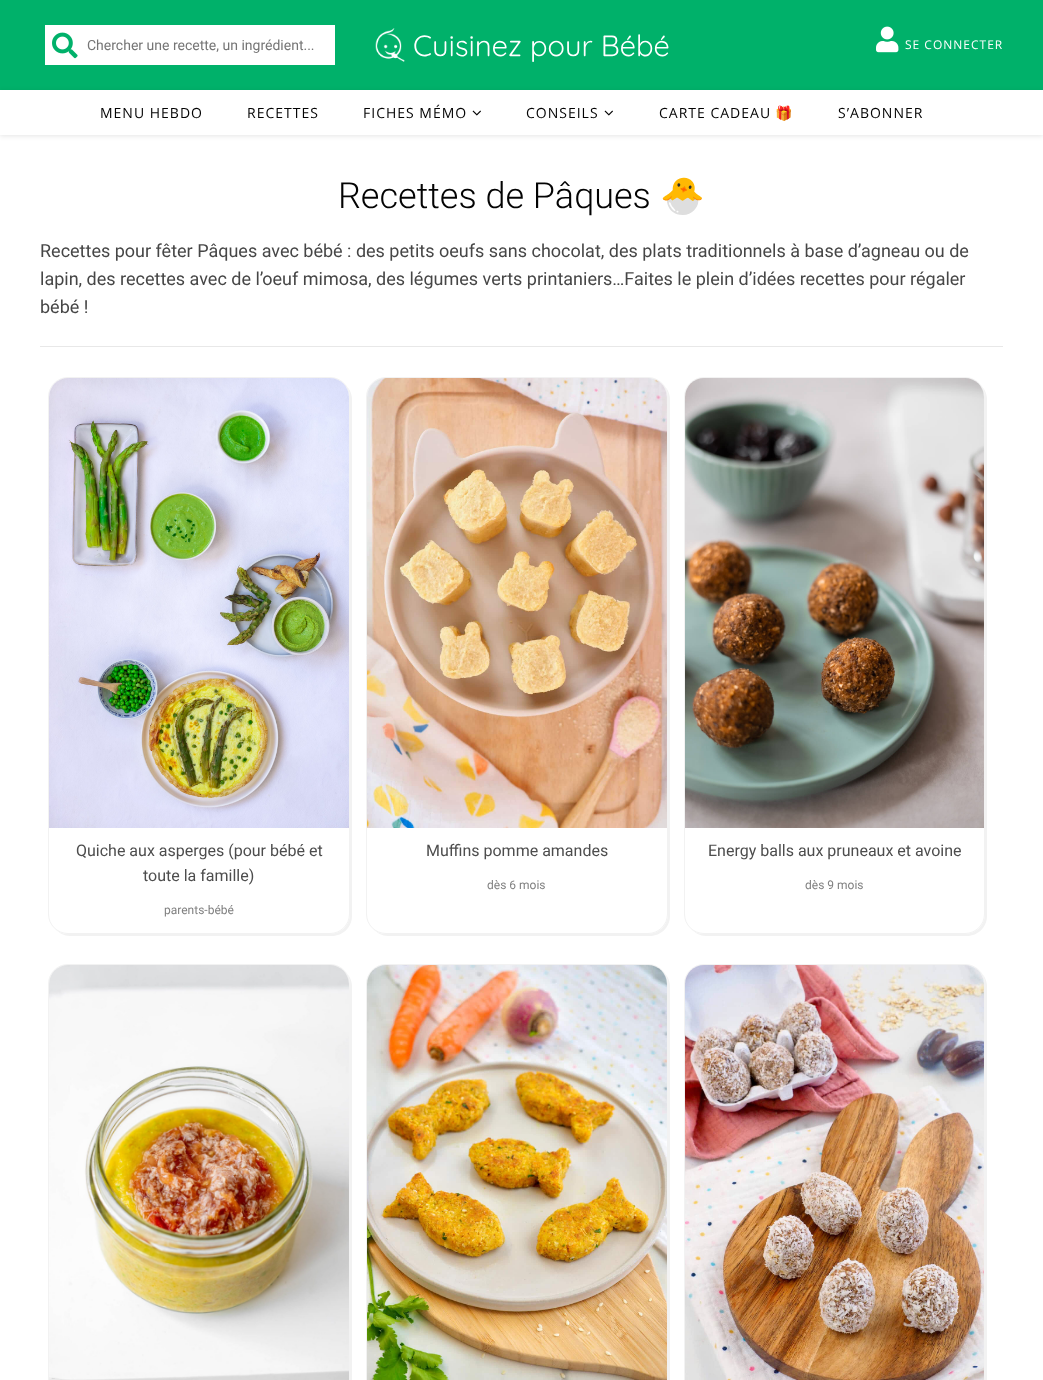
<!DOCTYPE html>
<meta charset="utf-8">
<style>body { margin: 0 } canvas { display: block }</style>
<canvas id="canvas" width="1043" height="1380"></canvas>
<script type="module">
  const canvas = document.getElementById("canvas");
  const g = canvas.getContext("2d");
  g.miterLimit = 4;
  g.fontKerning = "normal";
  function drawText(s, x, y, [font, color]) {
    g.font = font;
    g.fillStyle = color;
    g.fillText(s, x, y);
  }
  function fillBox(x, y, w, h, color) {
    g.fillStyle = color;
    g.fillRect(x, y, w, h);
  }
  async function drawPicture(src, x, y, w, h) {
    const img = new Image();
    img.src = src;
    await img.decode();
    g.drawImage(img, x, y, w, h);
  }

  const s1 = ["14px Roboto", "#757575"];
  const s2 = ["12px Open Sans", "#FFFFFF"];
  const s3 = ["14px Open Sans", "#030303"];
  const s4 = ["14px Noto Color Emoji", "#030303"];
  const s5 = ["300 36px Roboto", "#030303"];
  const s6 = ["36px Noto Color Emoji", "#030303"];
  const s7 = ["18px Roboto", "#464646"];
  const s8 = ["16px Roboto", "#4D4D4D"];
  const s9 = ["12px Roboto", "#808080"];

  fillBox(0, 0, 1043, 1380, "#FFFFFF");
  fillBox(0, 0, 1043, 90, "#00B16A");
  fillBox(45, 25, 290, 40, "#FFFFFF");
  await drawPicture("pic1.png", 52, 32, 26, 27);
  drawText("Chercher une recette, un ingrédient...", 87, 50, s1);
  await drawPicture("pic2.png", 375, 28, 294, 34);
  await drawPicture("pic3.png", 876, 26, 23, 27);
  g.letterSpacing = "1px";
  drawText("SE CONNECTER", 905, 49, s2);
  g.fillStyle = "rgba(0, 0, 0, 0.1)";
  g.filter = "blur(2.5px)";
  g.beginPath();
  g.rect(0, 91, 1043, 45);
  g.fill();
  g.filter = "none";
  fillBox(0, 90, 1043, 45, "#FFFFFF");
  drawText("MENU HEBDO", 100, 118, s3);
  drawText("RECETTES", 247, 118, s3);
  drawText("FICHES MÉMO", 363, 118, s3);
  await drawPicture("pic4.png", 472, 110, 9, 6);
  drawText("CONSEILS", 526, 118, s3);
  await drawPicture("pic4.png", 604, 110, 9, 6);
  drawText("CARTE CADEAU", 659, 118, s3);
  drawText("🎁", 775, 118, s4);
  drawText("S’ABONNER", 838, 118, s3);
  fillBox(40, 346, 963, 1, "#E8E8E8");
  g.letterSpacing = "0px";
  drawText("Recettes de Pâques", 338, 208, s5);
  drawText("🐣", 660, 208, s6);
  drawText("Recettes pour fêter Pâques avec bébé : des petits oeufs sans chocolat, des plats traditionnels à base d’agneau ou de", 40, 257, s7);
  drawText("lapin, des recettes avec de l’oeuf mimosa, des légumes verts printaniers…Faites le plein d’idées recettes pour régaler", 40, 285, s7);
  drawText("bébé !", 40, 313, s7);
  g.fillStyle = "#F2F2F2";
  g.beginPath();
  g.moveTo(55, 929);
  g.bezierCurveTo(59, 933, 64, 936, 70, 936);
  g.lineTo(332, 936);
  g.bezierCurveTo(343, 936, 352, 927, 352, 916);
  g.lineTo(352, 399);
  g.bezierCurveTo(352, 393, 349, 388, 345, 384);
  g.bezierCurveTo(348, 387, 350, 392, 350, 397);
  g.lineTo(350, 914);
  g.bezierCurveTo(350, 925, 341, 934, 330, 934);
  g.lineTo(68, 934);
  g.bezierCurveTo(63, 934, 58, 932, 55, 929);
  g.closePath();
  g.fill();
  g.fillStyle = "#FFFFFF";
  g.beginPath();
  g.roundRect(48.5, 377.5, 301, 556, 19.5);
  g.fill();
  g.strokeStyle = "#F2F2F2";
  g.stroke();
  await drawPicture("pic5.png", 49, 378, 300, 450);
  drawText("Quiche aux asperges (pour bébé et", 76, 856, s8);
  drawText("toute la famille)", 143, 881, s8);
  drawText("parents-bébé", 164, 914, s9);
  g.fillStyle = "#F2F2F2";
  g.beginPath();
  g.moveTo(373, 929);
  g.bezierCurveTo(377, 933, 382, 936, 388, 936);
  g.lineTo(650, 936);
  g.bezierCurveTo(661, 936, 670, 927, 670, 916);
  g.lineTo(670, 399);
  g.bezierCurveTo(670, 393, 667, 388, 663, 384);
  g.bezierCurveTo(666, 387, 668, 392, 668, 397);
  g.lineTo(668, 914);
  g.bezierCurveTo(668, 925, 659, 934, 648, 934);
  g.lineTo(386, 934);
  g.bezierCurveTo(381, 934, 376, 932, 373, 929);
  g.closePath();
  g.fill();
  g.fillStyle = "#FFFFFF";
  g.beginPath();
  g.roundRect(366.5, 377.5, 301, 556, 19.5);
  g.fill();
  g.stroke();
  await drawPicture("pic6.png", 367, 378, 300, 450);
  drawText("Muffins pomme amandes", 426, 856, s8);
  drawText("dès 6 mois", 487, 889, s9);
  g.fillStyle = "#F2F2F2";
  g.beginPath();
  g.moveTo(691, 929);
  g.bezierCurveTo(695, 933, 700, 936, 706, 936);
  g.lineTo(967, 936);
  g.bezierCurveTo(978, 936, 987, 927, 987, 916);
  g.lineTo(987, 399);
  g.bezierCurveTo(987, 393, 984, 388, 980, 384);
  g.bezierCurveTo(983, 387, 985, 392, 985, 397);
  g.lineTo(985, 914);
  g.bezierCurveTo(985, 925, 976, 934, 965, 934);
  g.lineTo(704, 934);
  g.bezierCurveTo(699, 934, 694, 932, 691, 929);
  g.closePath();
  g.fill();
  g.fillStyle = "#FFFFFF";
  g.beginPath();
  g.roundRect(684.5, 377.5, 300, 556, 19.5);
  g.fill();
  g.stroke();
  await drawPicture("pic7.png", 685, 378, 299, 450);
  drawText("Energy balls aux pruneaux et avoine", 708, 856, s8);
  drawText("dès 9 mois", 805, 889, s9);
  g.fillStyle = "#F2F2F2";
  g.beginPath();
  g.moveTo(55, 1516);
  g.bezierCurveTo(59, 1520, 64, 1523, 70, 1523);
  g.lineTo(332, 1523);
  g.bezierCurveTo(343, 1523, 352, 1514, 352, 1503);
  g.lineTo(352, 986);
  g.bezierCurveTo(352, 980, 349, 975, 345, 971);
  g.bezierCurveTo(348, 974, 350, 979, 350, 984);
  g.lineTo(350, 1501);
  g.bezierCurveTo(350, 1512, 341, 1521, 330, 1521);
  g.lineTo(68, 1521);
  g.bezierCurveTo(63, 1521, 58, 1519, 55, 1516);
  g.closePath();
  g.fill();
  g.fillStyle = "#FFFFFF";
  g.beginPath();
  g.roundRect(48.5, 964.5, 301, 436, 19.5);
  g.fill();
  g.stroke();
  await drawPicture("pic8.png", 49, 965, 300, 415);
  g.fillStyle = "#F2F2F2";
  g.beginPath();
  g.moveTo(373, 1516);
  g.bezierCurveTo(377, 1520, 382, 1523, 388, 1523);
  g.lineTo(650, 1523);
  g.bezierCurveTo(661, 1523, 670, 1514, 670, 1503);
  g.lineTo(670, 986);
  g.bezierCurveTo(670, 980, 667, 975, 663, 971);
  g.bezierCurveTo(666, 974, 668, 979, 668, 984);
  g.lineTo(668, 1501);
  g.bezierCurveTo(668, 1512, 659, 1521, 648, 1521);
  g.lineTo(386, 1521);
  g.bezierCurveTo(381, 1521, 376, 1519, 373, 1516);
  g.closePath();
  g.fill();
  g.fillStyle = "#FFFFFF";
  g.beginPath();
  g.roundRect(366.5, 964.5, 301, 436, 19.5);
  g.fill();
  g.stroke();
  await drawPicture("pic9.png", 367, 965, 300, 415);
  g.fillStyle = "#F2F2F2";
  g.beginPath();
  g.moveTo(691, 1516);
  g.bezierCurveTo(695, 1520, 700, 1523, 706, 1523);
  g.lineTo(967, 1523);
  g.bezierCurveTo(978, 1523, 987, 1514, 987, 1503);
  g.lineTo(987, 986);
  g.bezierCurveTo(987, 980, 984, 975, 980, 971);
  g.bezierCurveTo(983, 974, 985, 979, 985, 984);
  g.lineTo(985, 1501);
  g.bezierCurveTo(985, 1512, 976, 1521, 965, 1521);
  g.lineTo(704, 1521);
  g.bezierCurveTo(699, 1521, 694, 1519, 691, 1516);
  g.closePath();
  g.fill();
  g.fillStyle = "#FFFFFF";
  g.beginPath();
  g.roundRect(684.5, 964.5, 300, 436, 19.5);
  g.fill();
  g.stroke();
  await drawPicture("pic10.png", 685, 965, 299, 415);
</script>
